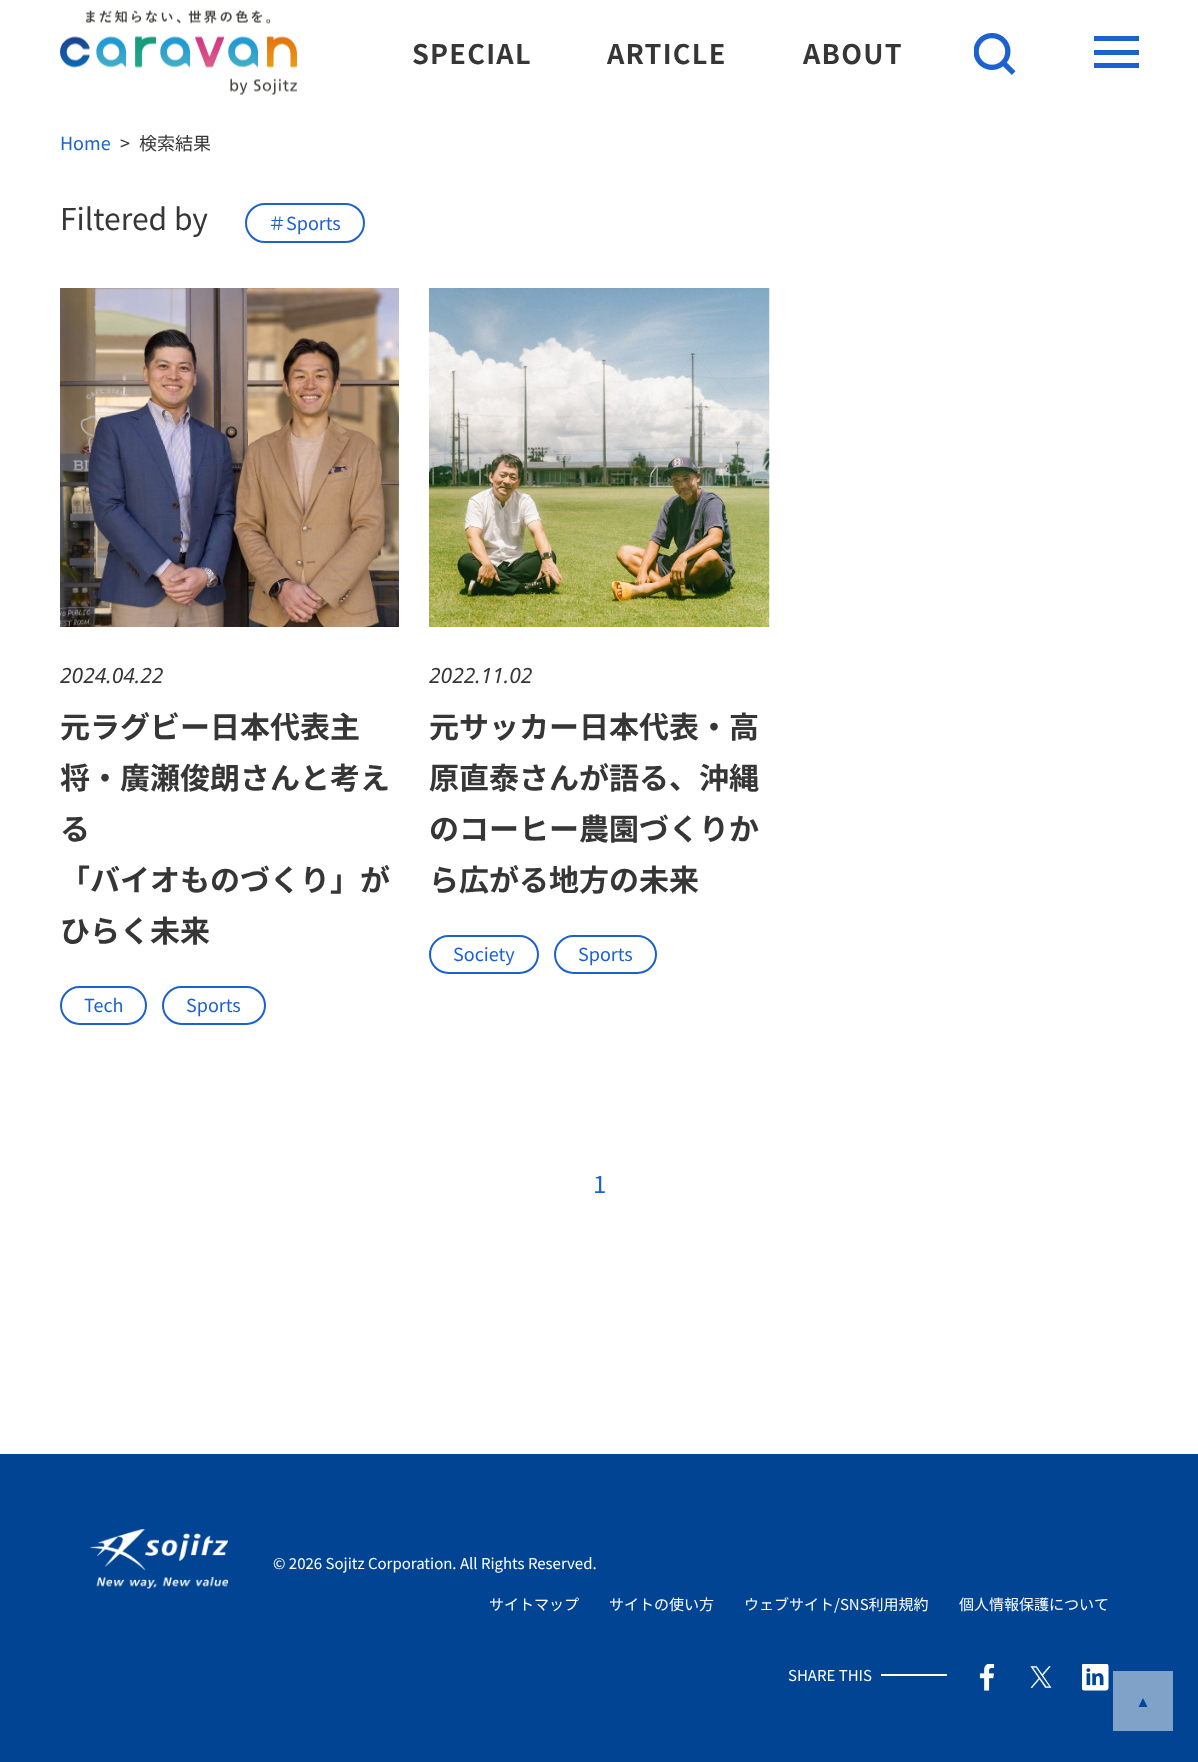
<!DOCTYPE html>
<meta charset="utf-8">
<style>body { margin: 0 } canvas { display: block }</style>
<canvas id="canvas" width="1198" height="1762"></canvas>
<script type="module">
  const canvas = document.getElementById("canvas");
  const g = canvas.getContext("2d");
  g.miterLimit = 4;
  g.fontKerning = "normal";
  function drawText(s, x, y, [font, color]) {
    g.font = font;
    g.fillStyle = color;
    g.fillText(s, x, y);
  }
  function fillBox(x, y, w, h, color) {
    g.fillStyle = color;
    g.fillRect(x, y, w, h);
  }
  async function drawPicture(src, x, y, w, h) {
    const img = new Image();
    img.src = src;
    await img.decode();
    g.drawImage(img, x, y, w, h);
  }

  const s1 = ["bold 27px Noto Sans JP", "#363636"];
  const s2 = ["18px Noto Sans JP", "#1C61D0"];
  const s3 = ["18px Noto Sans JP", "#363636"];
  const s4 = ["30px Noto Sans JP", "#363636"];
  const s5 = ["italic 21px Noto Sans", "#363636"];
  const s6 = ["bold 30px Noto Sans JP", "#363636"];
  const s7 = ["24px Noto Sans JP", "#1C61D0"];
  const s8 = ["15px Noto Sans JP", "#FFFFFF"];

  fillBox(0, 0, 1198, 1762, "#FFFFFF");
  await drawPicture("pic1.png", 60, 10, 237, 85);
  g.letterSpacing = "1.25px";
  drawText("SPECIAL", 412, 64, s1);
  drawText("ARTICLE", 607, 64, s1);
  drawText("ABOUT", 803, 64, s1);
  await drawPicture("pic2.png", 974, 33, 42, 42);
  fillBox(1094, 36, 45, 5, "#1C61D0");
  fillBox(1094, 50, 45, 5, "#1C61D0");
  fillBox(1094, 63, 45, 5, "#1C61D0");
  g.letterSpacing = "0px";
  drawText("Home", 60, 150, s2);
  drawText(">", 120, 150, s3);
  drawText("検索結果", 139, 150, s3);
  drawText("Filtered by", 60, 230, s4);
  g.beginPath();
  g.roundRect(246, 204, 118, 38, 19);
  g.strokeStyle = "#1C61D0";
  g.lineWidth = 2;
  g.stroke();
  drawText("＃Sports", 268, 230, s2);
  await drawPicture("pic3.png", 60, 288, 339, 339);
  drawText("2024.04.22", 60, 683, s5);
  drawText("元ラグビー日本代表主", 60, 738, s6);
  drawText("将・廣瀬俊朗さんと考え", 60, 789, s6);
  drawText("る", 60, 840, s6);
  drawText("「バイオものづくり」が", 60, 891, s6);
  drawText("ひらく未来", 60, 942, s6);
  g.beginPath();
  g.roundRect(61, 987, 85, 37, 18.5);
  g.stroke();
  drawText("Tech", 84, 1012, s2);
  g.beginPath();
  g.roundRect(163, 987, 102, 37, 18.5);
  g.stroke();
  drawText("Sports", 186, 1012, s2);
  await drawPicture("pic4.png", 429, 288, 341, 339);
  drawText("2022.11.02", 429, 683, s5);
  drawText("元サッカー日本代表・高", 429, 738, s6);
  drawText("原直泰さんが語る、沖縄", 429, 789, s6);
  drawText("のコーヒー農園づくりか", 429, 840, s6);
  drawText("ら広がる地方の未来", 429, 891, s6);
  g.beginPath();
  g.roundRect(430, 936, 108, 37, 18.5);
  g.stroke();
  drawText("Society", 453, 961, s2);
  g.beginPath();
  g.roundRect(555, 936, 101, 37, 18.5);
  g.stroke();
  drawText("Sports", 578, 961, s2);
  drawText("1", 593, 1193, s7);
  fillBox(0, 1454, 1198, 308, "#004493");
  await drawPicture("pic5.png", 90, 1529, 138, 60);
  drawText("© 2026 Sojitz Corporation. All Rights Reserved.", 273, 1569, s8);
  drawText("サイトマップ", 489, 1610, s8);
  drawText("サイトの使い方", 609, 1610, s8);
  drawText("ウェブサイト/SNS利用規約", 744, 1610, s8);
  drawText("個人情報保護について", 959, 1610, s8);
  drawText("SHARE THIS", 788, 1681, s8);
  fillBox(881, 1674, 66, 2, "#FFFFFF");
  await drawPicture("pic6.png", 979, 1664, 16, 27);
  await drawPicture("pic7.png", 1030, 1666, 22, 22);
  await drawPicture("pic8.png", 1082, 1664, 27, 27);
  fillBox(1113, 1671, 60, 60, "#80A2C9");
  g.fillStyle = "#00479D";
  g.beginPath();
  g.moveTo(1147.5, 1707);
  g.lineTo(1138.5, 1707);
  g.lineTo(1143, 1698);
  g.closePath();
  g.fill();
</script>
